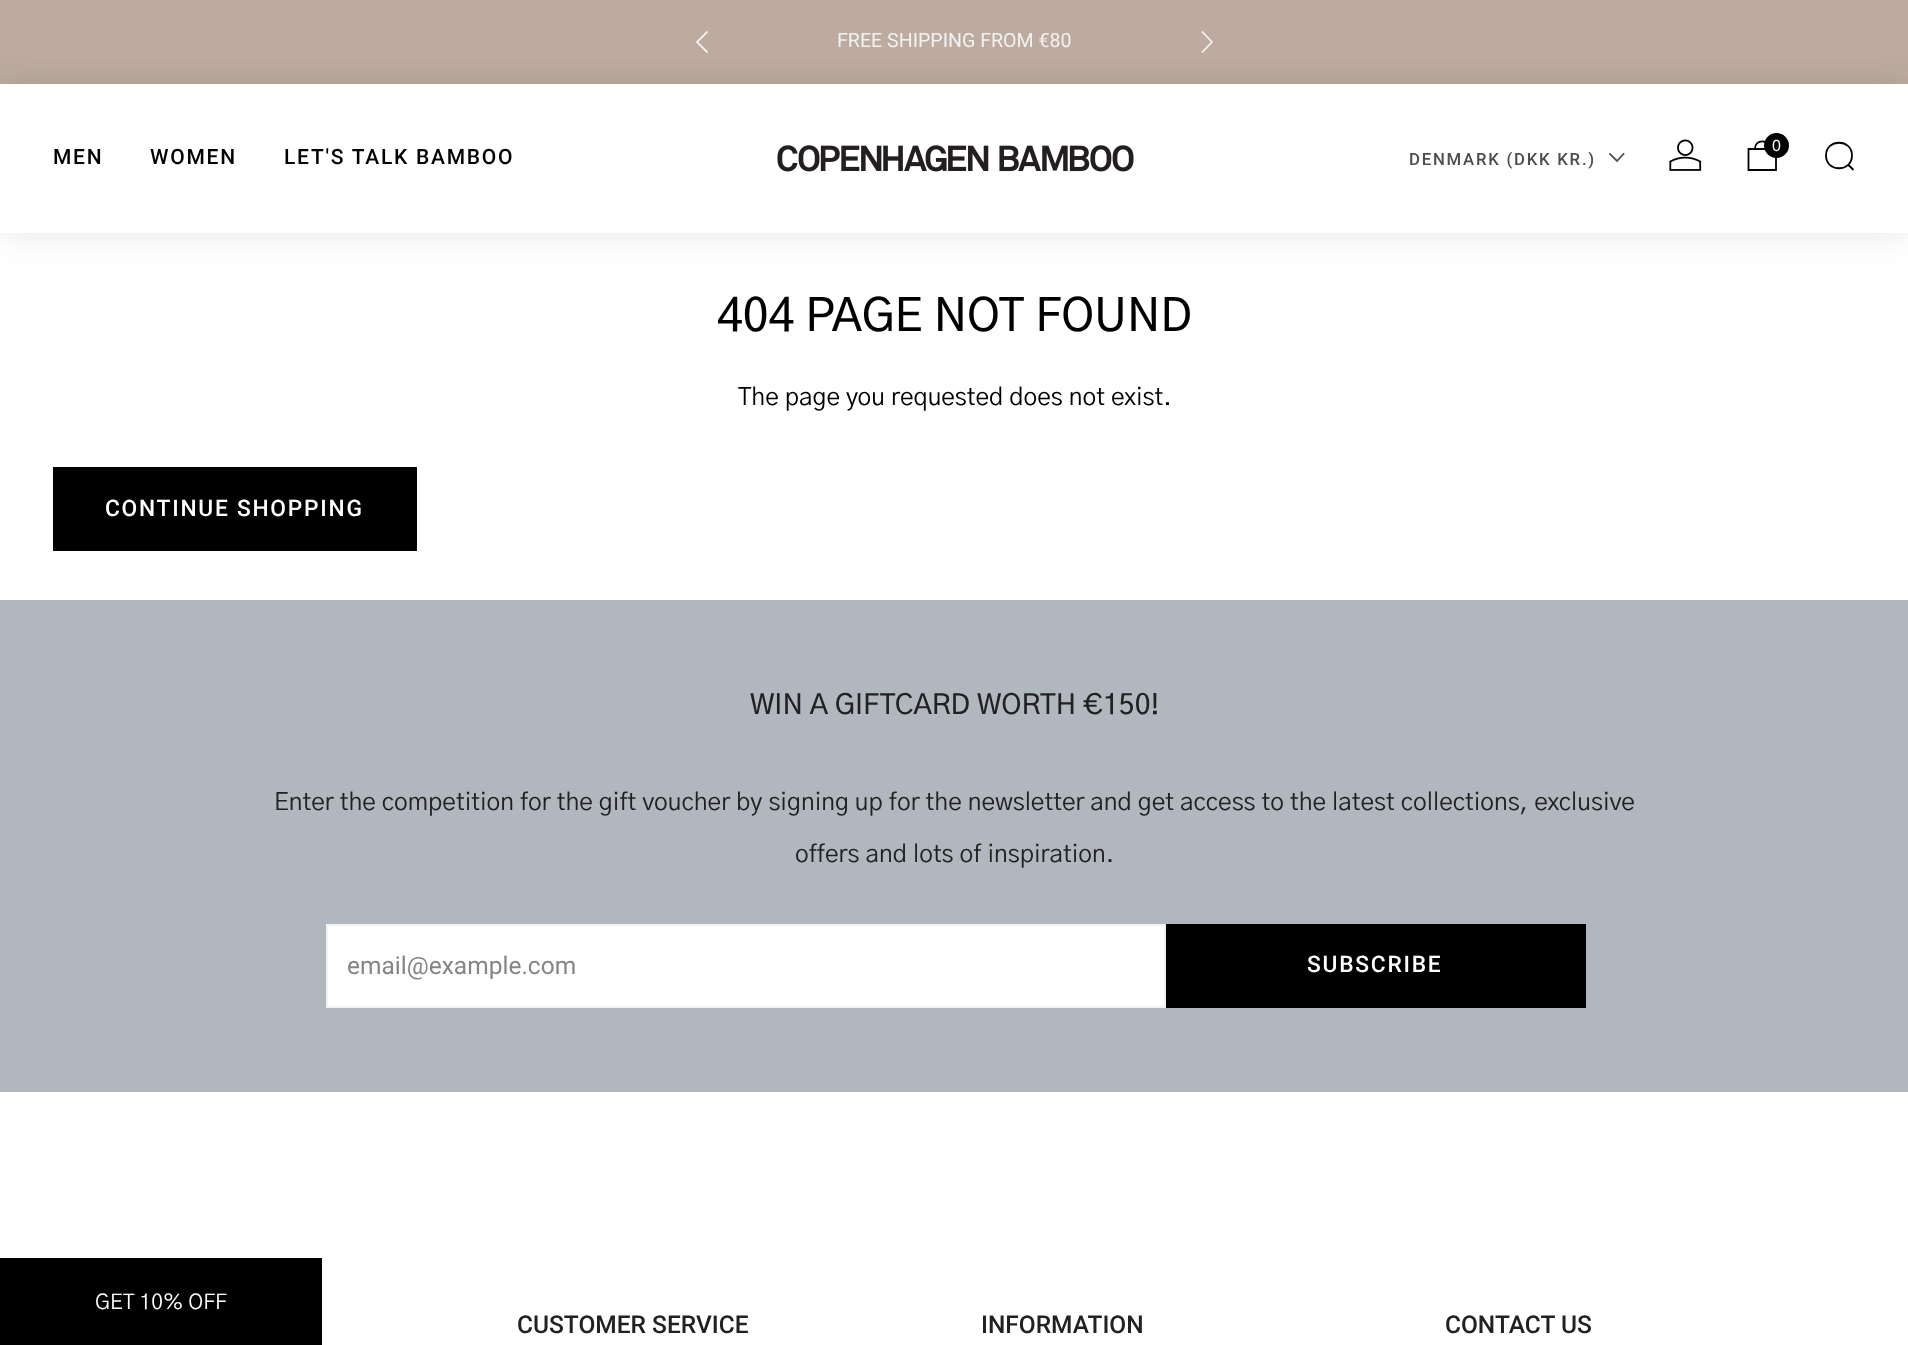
<!DOCTYPE html>
<meta charset="utf-8">
<style>body { margin: 0 } canvas { display: block }</style>
<canvas id="canvas" width="1908" height="1345"></canvas>
<script type="module">
  const canvas = document.getElementById("canvas");
  const g = canvas.getContext("2d");
  g.miterLimit = 4;
  g.fontKerning = "normal";
  function drawText(s, x, y, [font, color]) {
    g.font = font;
    g.fillStyle = color;
    g.fillText(s, x, y);
  }
  function fillBox(x, y, w, h, color) {
    g.fillStyle = color;
    g.fillRect(x, y, w, h);
  }
  async function drawPicture(src, x, y, w, h) {
    const img = new Image();
    img.src = src;
    await img.decode();
    g.drawImage(img, x, y, w, h);
  }

  const s1 = ["19.6px Roboto", "#F2F2F2"];
  const s2 = ["500 21px Roboto", "#000000"];
  const s3 = ["16px Liberation Sans", "#FFFFFF"];
  const s4 = ["500 16.75px Roboto", "#4D4D4D"];
  const s5 = ["500 45.5px 'Gothic A1'", "#000000"];
  const s6 = ["24.5px 'Gothic A1'", "#000000"];
  const s7 = ["500 22.75px Roboto", "#FFFFFF"];
  const s8 = ["500 28px 'Gothic A1'", "#212121"];
  const s9 = ["24.5px 'Gothic A1'", "#212121"];
  const s10 = ["24.5px Roboto", "#858585"];
  const s11 = ["500 24.5px Roboto", "#212121"];
  const s12 = ["21px 'Gothic A1'", "#FFFFFF"];

  fillBox(0, 0, 1908, 1345, "#FFFFFF");
  fillBox(0, 0, 1908, 84, "#BCAB9E");
  g.beginPath();
  g.moveTo(707, 52);
  g.lineTo(697, 42);
  g.lineTo(707, 32);
  g.strokeStyle = "#F2F2F2";
  g.lineWidth = 1.8;
  g.lineCap = "square";
  g.stroke();
  drawText("FREE SHIPPING FROM €80", 837, 47, s1);
  g.beginPath();
  g.moveTo(1202.5, 32);
  g.lineTo(1212, 42);
  g.lineTo(1202.5, 52);
  g.stroke();
  g.fillStyle = "rgba(0, 0, 0, 0.1)";
  g.filter = "blur(17.5px)";
  g.beginPath();
  g.rect(0, 84, 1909, 149);
  g.fill();
  g.filter = "none";
  fillBox(0, 84, 1908, 149, "#FFFFFF");
  g.letterSpacing = "1.75px";
  drawText("MEN", 53, 164, s2);
  drawText("WOMEN", 150, 164, s2);
  drawText("LET'S TALK BAMBOO", 284, 164, s2);
  await drawPicture("pic1.png", 1669, 139, 33, 32);
  g.beginPath();
  g.moveTo(1769.5, 148.5);
  g.bezierCurveTo(1769.5, 139, 1755, 139, 1755, 148.5);
  g.moveTo(1748.5, 149);
  g.lineTo(1776, 149);
  g.lineTo(1776, 170);
  g.lineTo(1748.5, 170);
  g.closePath();
  g.strokeStyle = "#000000";
  g.lineCap = "butt";
  g.stroke();
  g.beginPath();
  g.arc(1776.5, 145.5, 12.5, 0, Math.PI * 2);
  g.fill();
  g.letterSpacing = "0px";
  drawText("0", 1772, 151, s3);
  g.beginPath();
  g.moveTo(1848, 164.5);
  g.lineTo(1853.5, 170);
  g.moveTo(1852, 155.5);
  g.bezierCurveTo(1852, 172.5, 1826, 172.5, 1826, 155.5);
  g.bezierCurveTo(1826, 138.5, 1852, 138.5, 1852, 155.5);
  g.closePath();
  g.stroke();
  g.letterSpacing = "1.75px";
  drawText("DENMARK (DKK KR.)", 1409, 165, s4);
  g.beginPath();
  g.moveTo(1623.5, 154);
  g.lineTo(1617, 161);
  g.lineTo(1610, 154);
  g.strokeStyle = "#4D4D4D";
  g.lineCap = "square";
  g.stroke();
  await drawPicture("pic2.png", 777, 145, 357, 27);
  g.letterSpacing = "0px";
  drawText("404 PAGE NOT FOUND", 717, 331, s5);
  drawText("The page you requested does not exist.", 738, 405, s6);
  fillBox(53, 467, 364, 84, "#000000");
  g.letterSpacing = "1.75px";
  drawText("CONTINUE SHOPPING", 105, 516, s7);
  fillBox(0, 600, 1908, 492, "#B0B7BE");
  g.letterSpacing = "0px";
  drawText("WIN A GIFTCARD WORTH €150!", 750, 714, s8);
  drawText("Enter the competition for the gift voucher by signing up for the newsletter and get access to the latest collections, exclusive", 274, 810, s9);
  drawText("offers and lots of inspiration.", 795, 862, s9);
  g.fillStyle = "#FFFFFF";
  g.beginPath();
  g.rect(327, 925, 838, 82);
  g.fill();
  g.strokeStyle = "#F2F2F2";
  g.lineWidth = 2;
  g.stroke();
  drawText("email@example.com", 347, 974, s10);
  fillBox(1166, 924, 420, 84, "#000000");
  g.letterSpacing = "1.75px";
  drawText("SUBSCRIBE", 1307, 972, s7);
  g.letterSpacing = "0px";
  drawText("CUSTOMER SERVICE", 517, 1333, s11);
  drawText("INFORMATION", 981, 1333, s11);
  drawText("CONTACT US", 1445, 1333, s11);
  fillBox(0, 1258, 322, 87, "#000000");
  drawText("GET 10% OFF", 95, 1309, s12);
</script>
